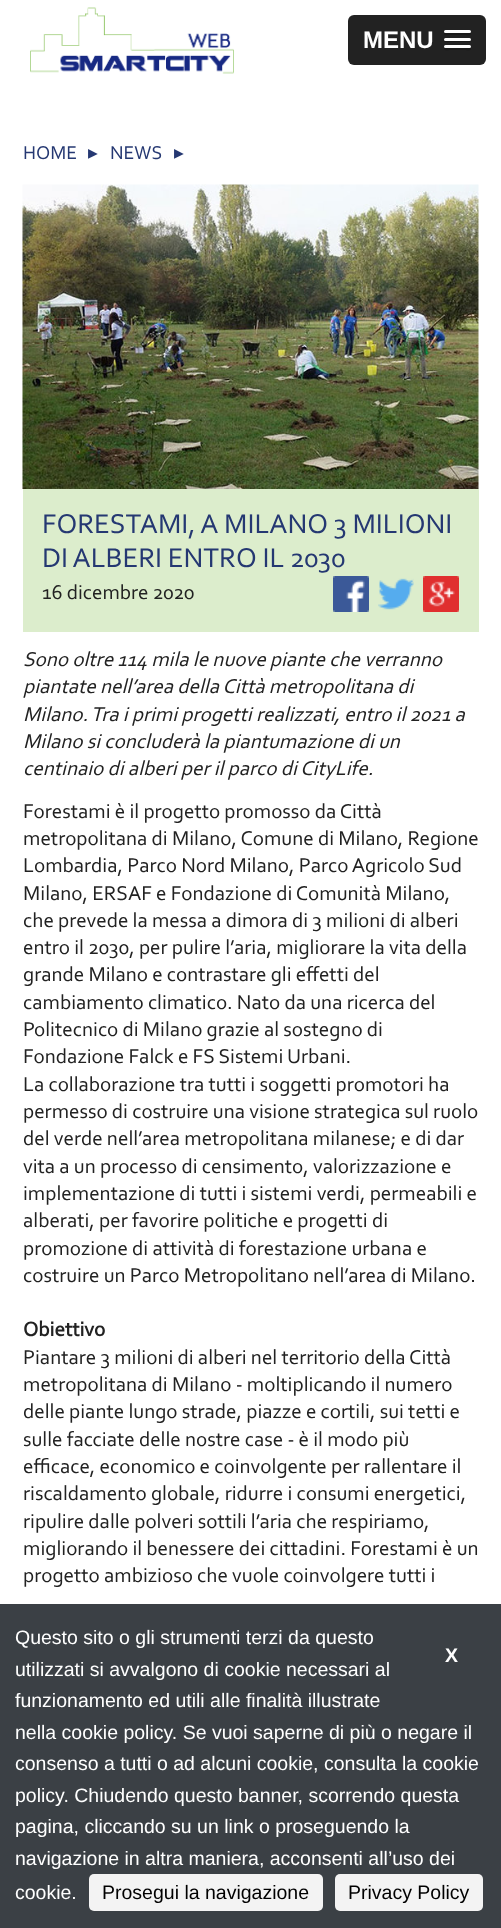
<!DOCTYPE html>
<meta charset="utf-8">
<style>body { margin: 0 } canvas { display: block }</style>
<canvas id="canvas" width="501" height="1928"></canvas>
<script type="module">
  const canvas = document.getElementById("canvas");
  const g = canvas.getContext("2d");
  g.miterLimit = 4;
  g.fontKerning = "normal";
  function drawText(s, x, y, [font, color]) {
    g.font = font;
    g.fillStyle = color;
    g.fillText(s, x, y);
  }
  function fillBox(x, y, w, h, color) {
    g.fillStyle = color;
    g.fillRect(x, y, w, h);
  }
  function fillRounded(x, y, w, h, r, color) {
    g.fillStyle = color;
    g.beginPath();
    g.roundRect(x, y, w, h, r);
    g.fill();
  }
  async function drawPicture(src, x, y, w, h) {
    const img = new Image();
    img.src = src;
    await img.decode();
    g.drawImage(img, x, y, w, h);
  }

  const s1 = ["bold 24px Liberation Sans", "#FFFFFF"];
  const s2 = ["19.5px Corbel", "#253872"];
  const s3 = ["19.5px DejaVu Sans", "#253872"];
  const s4 = ["28.5px Corbel", "#253872"];
  const s5 = ["21px Corbel", "#222222"];
  const s6 = ["italic 21px Corbel", "#222222"];
  const s7 = ["bold 21px Corbel", "#222222"];
  const s8 = ["19.5px Liberation Sans", "#FFFFFF"];
  const s9 = ["bold 19.5px Liberation Sans", "#FFFFFF"];
  const s10 = ["19.5px Liberation Sans", "#000000"];

  fillBox(0, 0, 501, 1928, "#FFFFFF");
  await drawPicture("pic1.png", 30, 7, 204, 67);
  fillRounded(348, 15, 138, 50, 6, "#222222");
  drawText("MENU", 363, 48, s1);
  g.fillStyle = "#1A1A1A";
  g.beginPath();
  g.moveTo(444.5, 32.5);
  g.lineTo(444, 34);
  g.bezierCurveTo(444.5, 36, 449, 35, 449.5, 35);
  g.lineTo(465.5, 35);
  g.bezierCurveTo(466, 35, 470.5, 36, 471, 34);
  g.lineTo(470.5, 32.5);
  g.lineTo(469.5, 33);
  g.lineTo(445.5, 33);
  g.closePath();
  g.fill();
  fillRounded(444, 30, 27, 3, 1.5, "#FFFFFF");
  g.fillStyle = "#1A1A1A";
  g.beginPath();
  g.moveTo(444, 39.5);
  g.bezierCurveTo(442.5, 43, 449.5, 42, 449.5, 42);
  g.lineTo(465.5, 42);
  g.bezierCurveTo(465.5, 42, 472.5, 43, 471, 39.5);
  g.bezierCurveTo(470.5, 40, 470, 40.5, 469.5, 40.5);
  g.lineTo(445.5, 40.5);
  g.bezierCurveTo(445, 40.5, 444.5, 40, 444, 39.5);
  g.closePath();
  g.fill();
  fillRounded(444, 38, 27, 3, 1.5, "#FFFFFF");
  g.fillStyle = "#1A1A1A";
  g.beginPath();
  g.moveTo(444.5, 47.5);
  g.lineTo(444, 49);
  g.bezierCurveTo(444.5, 51, 449, 50, 449.5, 50);
  g.lineTo(465.5, 50);
  g.bezierCurveTo(466, 50, 470.5, 51, 471, 49);
  g.lineTo(470.5, 47.5);
  g.lineTo(469.5, 48);
  g.lineTo(445.5, 48);
  g.closePath();
  g.fill();
  fillRounded(444, 45, 27, 3, 1.5, "#FFFFFF");
  drawText("HOME", 23, 159, s2);
  drawText("▸", 88, 159, s3);
  drawText("NEWS", 110, 159, s2);
  drawText("▸", 174, 159, s3);
  await drawPicture("pic2.png", 22, 184, 457, 305);
  fillBox(23, 489, 456, 143, "#DCEDCC");
  drawText("FORESTAMI, A MILANO 3 MILIONI", 42, 533, s4);
  drawText("DI ALBERI ENTRO IL 2030", 42, 567, s4);
  drawText("16 dicembre 2020", 42, 599, s5);
  await drawPicture("pic3.png", 333, 576, 36, 36);
  await drawPicture("pic4.png", 378, 578, 36, 32);
  await drawPicture("pic5.png", 423, 576, 36, 36);
  drawText("Sono oltre 114 mila le nuove piante che verranno", 23, 666, s6);
  drawText("piantate nell’area della Città metropolitana di", 23, 693, s6);
  drawText("Milano. Tra i primi progetti realizzati, entro il 2021 a", 23, 721, s6);
  drawText("Milano si concluderà la piantumazione di un", 23, 748, s6);
  drawText("centinaio di alberi per il parco di CityLife.", 23, 775, s6);
  drawText("Forestami è il progetto promosso da Città", 23, 818, s5);
  drawText("metropolitana di Milano, Comune di Milano, Regione", 23, 845, s5);
  drawText("Lombardia, Parco Nord Milano, Parco Agricolo Sud", 23, 872, s5);
  drawText("Milano, ERSAF e Fondazione di Comunità Milano,", 23, 900, s5);
  drawText("che prevede la messa a dimora di 3 milioni di alberi", 23, 927, s5);
  drawText("entro il 2030, per pulire l’aria, migliorare la vita della", 23, 954, s5);
  drawText("grande Milano e contrastare gli effetti del", 23, 981, s5);
  drawText("cambiamento climatico. Nato da una ricerca del", 23, 1009, s5);
  drawText("Politecnico di Milano grazie al sostegno di", 23, 1036, s5);
  drawText("Fondazione Falck e FS Sistemi Urbani.", 23, 1063, s5);
  drawText("La collaborazione tra tutti i soggetti promotori ha", 23, 1091, s5);
  drawText("permesso di costruire una visione strategica sul ruolo", 23, 1118, s5);
  drawText("del verde nell’area metropolitana milanese; e di dar", 23, 1145, s5);
  drawText("vita a un processo di censimento, valorizzazione e", 23, 1173, s5);
  drawText("implementazione di tutti i sistemi verdi, permeabili e", 23, 1200, s5);
  drawText("alberati, per favorire politiche e progetti di", 23, 1227, s5);
  drawText("promozione di attività di forestazione urbana e", 23, 1255, s5);
  drawText("costruire un Parco Metropolitano nell’area di Milano.", 23, 1282, s5);
  drawText("Obiettivo", 23, 1336, s7);
  drawText("Piantare 3 milioni di alberi nel territorio della Città", 23, 1364, s5);
  drawText("metropolitana di Milano - moltiplicando il numero", 23, 1391, s5);
  drawText("delle piante lungo strade, piazze e cortili, sui tetti e", 23, 1418, s5);
  drawText("sulle facciate delle nostre case - è il modo più", 23, 1446, s5);
  drawText("efficace, economico e coinvolgente per rallentare il", 23, 1473, s5);
  drawText("riscaldamento globale, ridurre i consumi energetici,", 23, 1500, s5);
  drawText("ripulire dalle polveri sottili l’aria che respiriamo,", 23, 1528, s5);
  drawText("migliorando il benessere dei cittadini. Forestami è un", 23, 1555, s5);
  drawText("progetto ambizioso che vuole coinvolgere tutti i", 23, 1582, s5);
  fillBox(0, 1604, 501, 324, "#3B4045");
  drawText("Questo sito o gli strumenti terzi da questo", 15, 1644, s8);
  drawText("X", 445, 1662, s9);
  drawText("utilizzati si avvalgono di cookie necessari al", 15, 1676, s8);
  drawText("funzionamento ed utili alle finalità illustrate", 15, 1707, s8);
  drawText("nella cookie policy. Se vuoi saperne di più o negare il", 15, 1739, s8);
  drawText("consenso a tutti o ad alcuni cookie, consulta la cookie", 15, 1770, s8);
  drawText("policy. Chiudendo questo banner, scorrendo questa", 15, 1802, s8);
  drawText("pagina, cliccando su un link o proseguendo la", 15, 1833, s8);
  drawText("navigazione in altra maniera, acconsenti all’uso dei", 15, 1865, s8);
  drawText("cookie.", 15, 1899, s8);
  fillRounded(89, 1874, 234, 37, 5, "#F3F3F3");
  drawText("Prosegui la navigazione", 102, 1899, s10);
  fillRounded(335, 1874, 148, 37, 5, "#F3F3F3");
  drawText("Privacy Policy", 348, 1899, s10);
</script>
